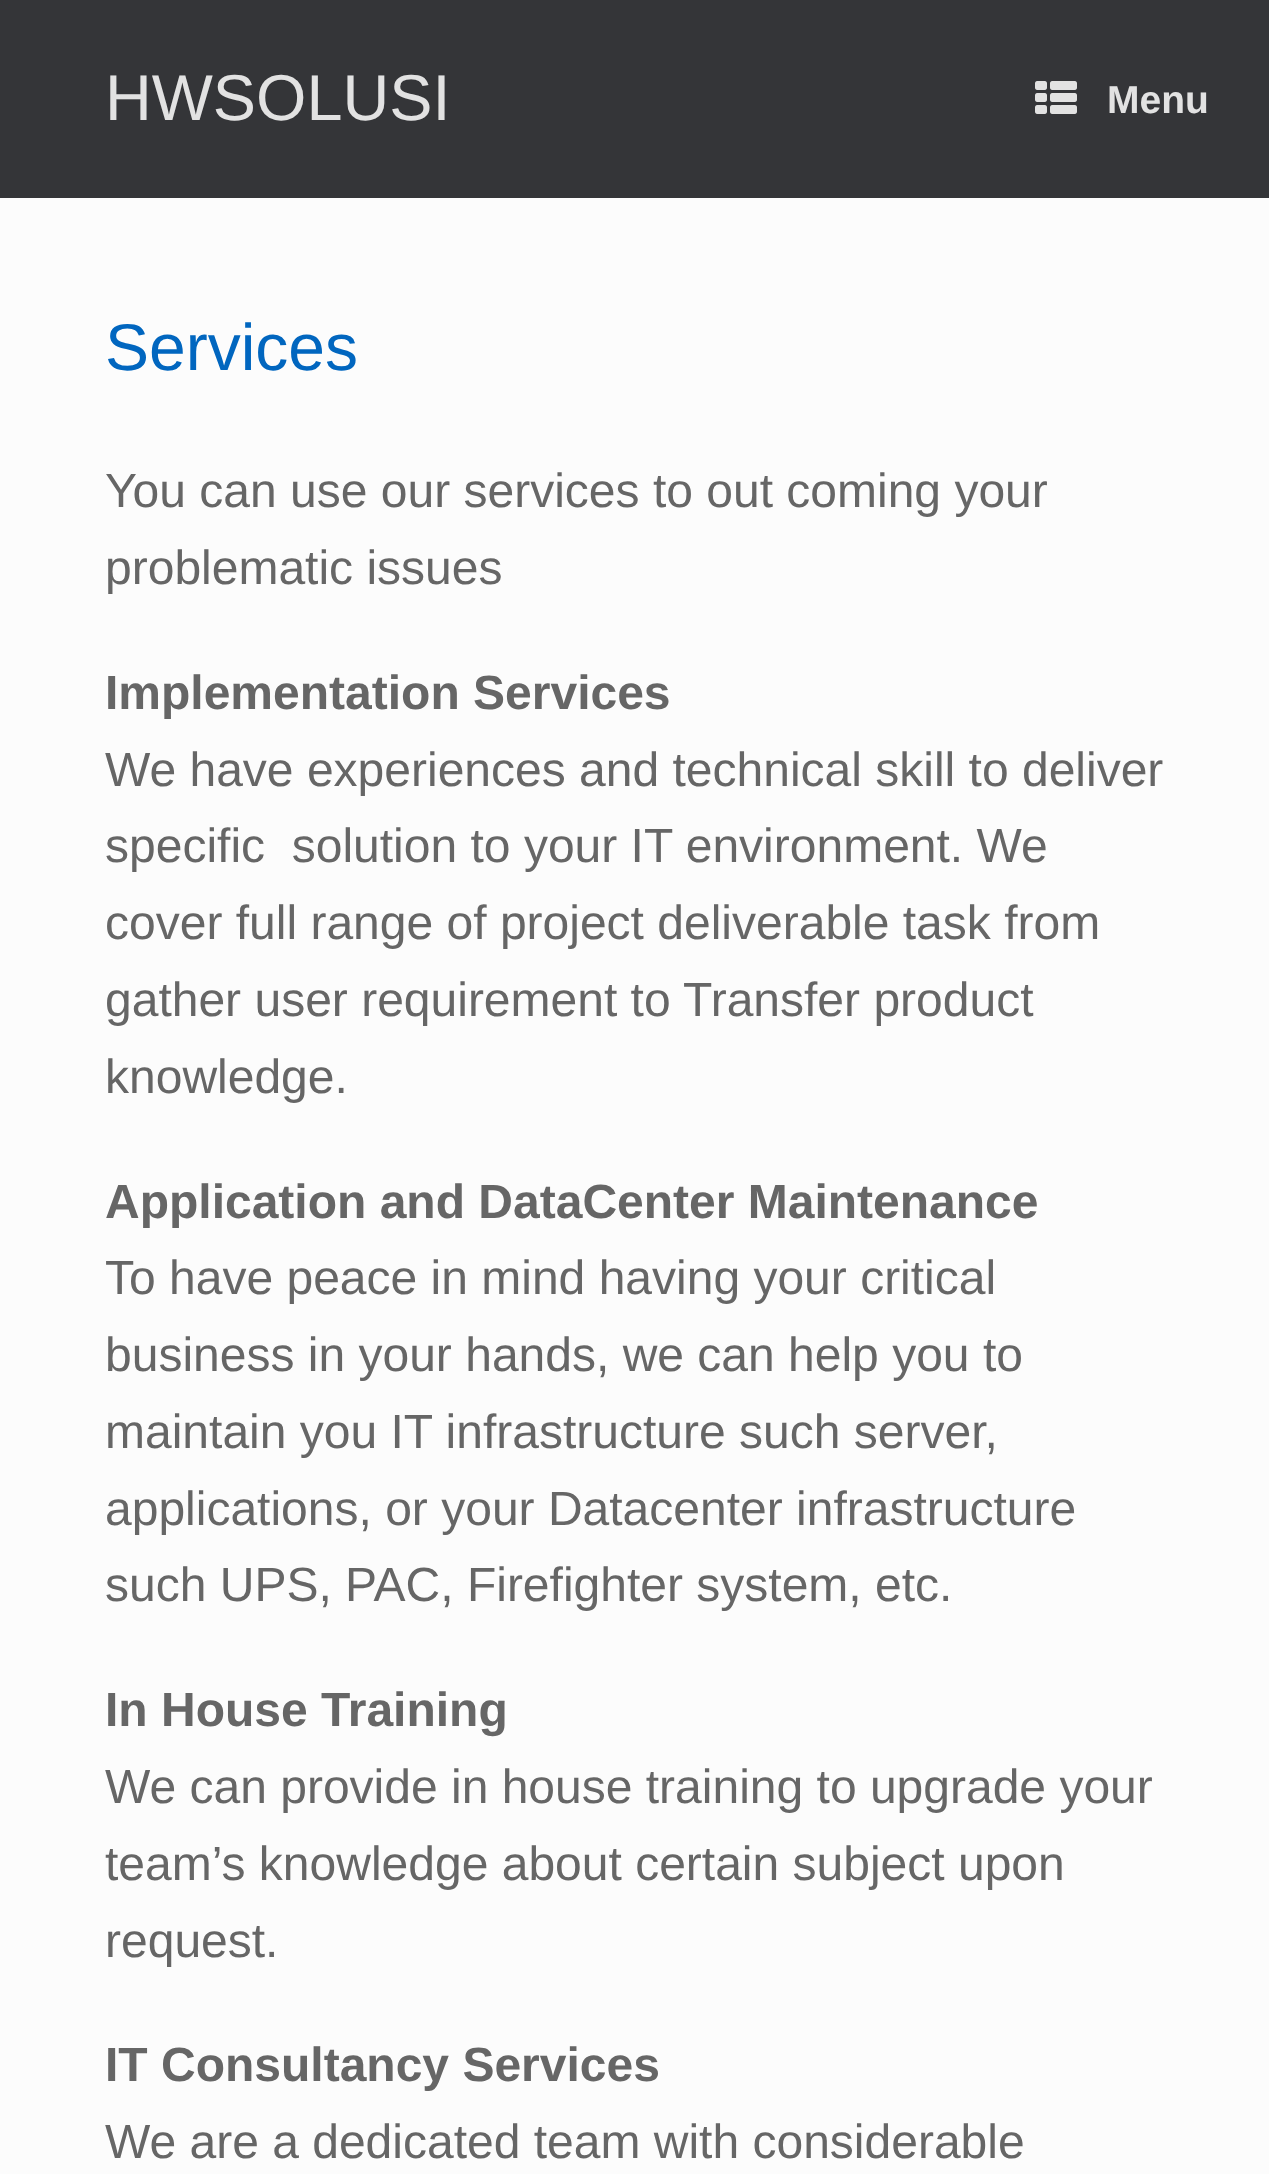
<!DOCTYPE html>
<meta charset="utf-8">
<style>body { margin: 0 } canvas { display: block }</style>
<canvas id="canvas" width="1269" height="2174"></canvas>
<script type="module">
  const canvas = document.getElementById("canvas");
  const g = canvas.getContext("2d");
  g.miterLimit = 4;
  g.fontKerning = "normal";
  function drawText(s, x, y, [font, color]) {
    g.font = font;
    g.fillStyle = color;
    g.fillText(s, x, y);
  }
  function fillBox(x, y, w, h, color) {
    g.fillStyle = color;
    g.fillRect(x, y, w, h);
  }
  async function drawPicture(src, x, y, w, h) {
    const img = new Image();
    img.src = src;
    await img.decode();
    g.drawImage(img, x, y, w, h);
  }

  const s1 = ["64.75px Liberation Sans", "#E2E2E2"];
  const s2 = ["bold 39px Liberation Sans", "#E2E2E2"];
  const s3 = ["66px Liberation Sans", "#0166BF"];
  const s4 = ["48px Liberation Sans", "#666666"];
  const s5 = ["bold 48px Liberation Sans", "#666666"];

  fillBox(0, 0, 1269, 2174, "#FCFCFC");
  fillBox(0, 0, 1269, 198, "#343538");
  drawText("HWSOLUSI", 105, 120, s1);
  await drawPicture("pic1.png", 1035, 81, 42, 33);
  drawText("Menu", 1107, 113, s2);
  drawText("Services", 105, 370, s3);
  drawText("You can use our services to out coming your", 105, 507, s4);
  drawText("problematic issues", 105, 584, s4);
  drawText("Implementation Services", 105, 709, s5);
  drawText("We have experiences and technical skill to deliver", 105, 786, s4);
  drawText("specific  solution to your IT environment. We", 105, 862, s4);
  drawText("cover full range of project deliverable task from", 105, 939, s4);
  drawText("gather user requirement to Transfer product", 105, 1016, s4);
  drawText("knowledge.", 105, 1093, s4);
  drawText("Application and DataCenter Maintenance", 105, 1218, s5);
  drawText("To have peace in mind having your critical", 105, 1294, s4);
  drawText("business in your hands, we can help you to", 105, 1371, s4);
  drawText("maintain you IT infrastructure such server,", 105, 1448, s4);
  drawText("applications, or your Datacenter infrastructure", 105, 1525, s4);
  drawText("such UPS, PAC, Firefighter system, etc.", 105, 1601, s4);
  drawText("In House Training", 105, 1726, s5);
  drawText("We can provide in house training to upgrade your", 105, 1803, s4);
  drawText("team’s knowledge about certain subject upon", 105, 1880, s4);
  drawText("request.", 105, 1957, s4);
  drawText("IT Consultancy Services", 105, 2081, s5);
  drawText("We are a dedicated team with considerable", 105, 2158, s4);
</script>
